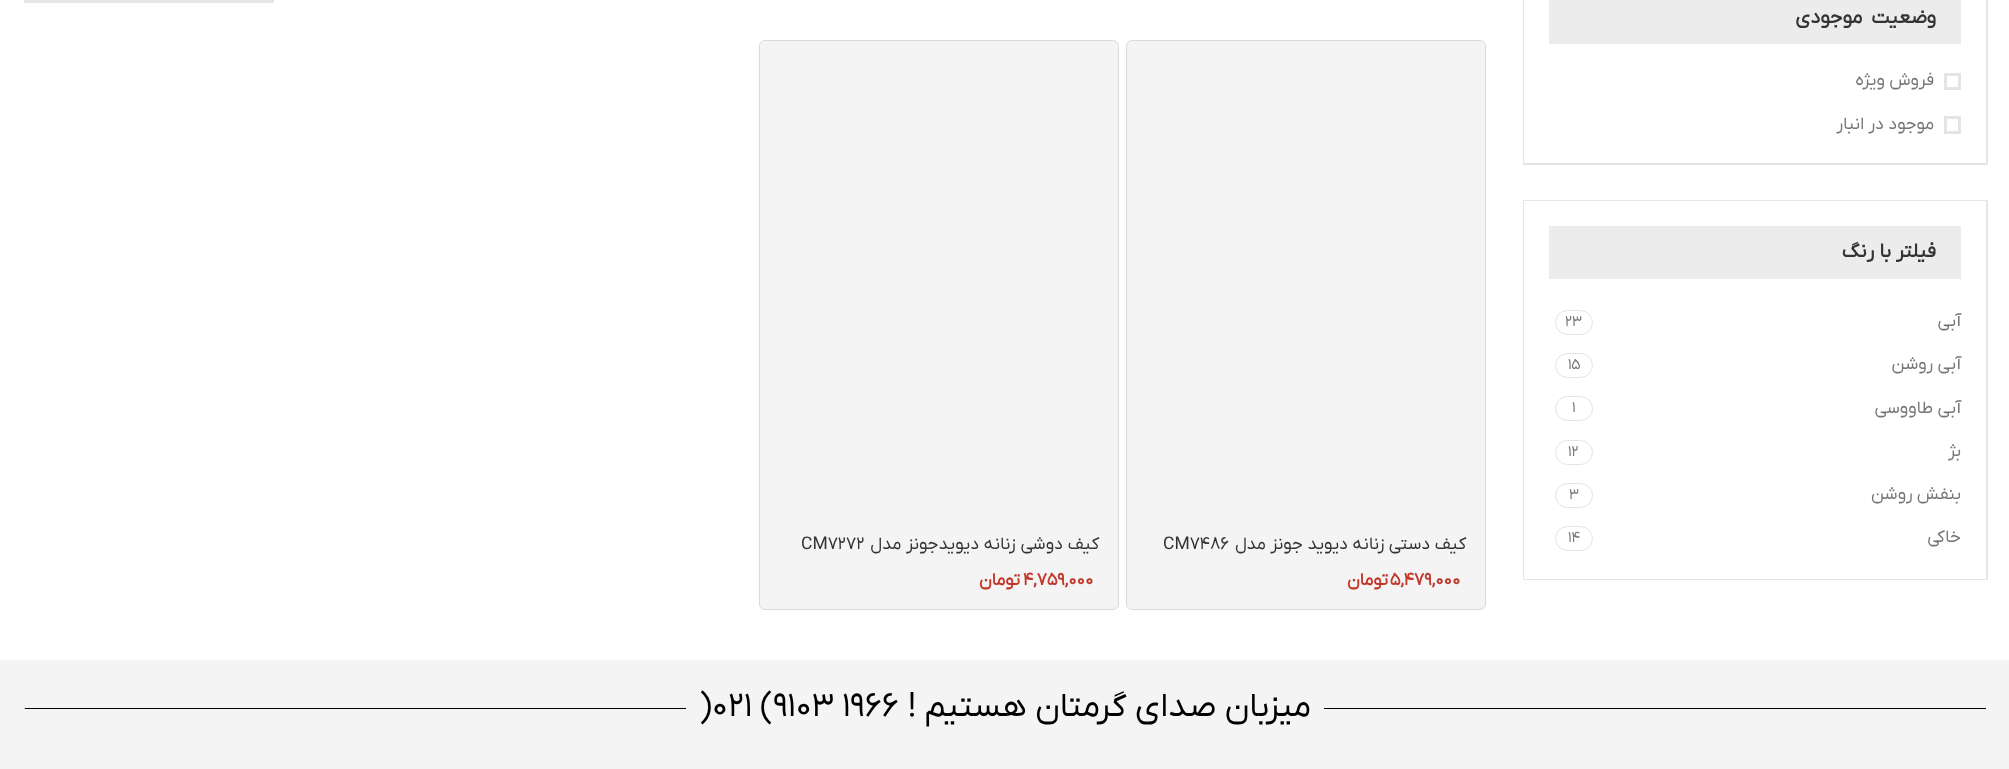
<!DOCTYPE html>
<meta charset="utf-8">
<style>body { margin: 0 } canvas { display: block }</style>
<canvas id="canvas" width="2009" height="769"></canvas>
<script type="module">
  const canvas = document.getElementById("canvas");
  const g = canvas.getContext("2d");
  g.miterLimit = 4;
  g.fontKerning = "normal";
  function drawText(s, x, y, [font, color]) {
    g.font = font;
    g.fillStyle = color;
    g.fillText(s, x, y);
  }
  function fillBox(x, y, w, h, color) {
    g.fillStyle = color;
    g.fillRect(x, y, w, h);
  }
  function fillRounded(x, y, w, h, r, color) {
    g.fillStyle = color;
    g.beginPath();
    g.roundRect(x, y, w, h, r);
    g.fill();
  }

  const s1 = ["bold 20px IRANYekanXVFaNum", "#333333"];
  const s2 = ["17.5px IRANYekanXVFaNum", "#767676"];
  const s3 = ["15px IRANYekanXVFaNum", "#767676"];
  const s4 = ["17.5px IRANYekanXVFaNum", "#333333"];
  const s5 = ["bold 17.5px IRANYekanXVFaNum", "#C0392B"];
  const s6 = ["33.75px IRANYekanXVFaNum", "#000000"];

  fillBox(0, 0, 2009, 769, "#FFFFFF");
  g.save();
  g.beginPath();
  g.moveTo(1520, 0);
  g.lineTo(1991, 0);
  g.lineTo(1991, 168);
  g.lineTo(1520, 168);
  g.closePath();
  g.moveTo(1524, -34);
  g.lineTo(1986, -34);
  g.lineTo(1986, 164);
  g.lineTo(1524, 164);
  g.closePath();
  g.clip("evenodd");
  g.fillStyle = "#E6E6E6";
  g.filter = "blur(0.5px)";
  g.beginPath();
  g.rect(1523, -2, 465, 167);
  g.fill();
  g.filter = "none";
  g.restore();
  fillBox(1524, 163, 462, 1, "#DEDEDE");
  fillBox(1549, 0, 412, 44, "#ECECEC");
  g.wordSpacing = "4px";
  g.direction = "rtl";
  drawText("وضعیت موجودی", 1936, 23, s1);
  g.strokeStyle = "#E4E4E4";
  g.lineWidth = 3;
  g.strokeRect(1945.5, 74.5, 14, 14);
  g.wordSpacing = "0px";
  drawText("فروش ویژه", 1934, 85, s2);
  g.strokeRect(1945.5, 117.5, 14, 15);
  drawText("موجود در انبار", 1934, 129, s2);
  g.save();
  g.beginPath();
  g.moveTo(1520, 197);
  g.lineTo(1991, 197);
  g.lineTo(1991, 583);
  g.lineTo(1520, 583);
  g.closePath();
  g.moveTo(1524, 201);
  g.lineTo(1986, 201);
  g.lineTo(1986, 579);
  g.lineTo(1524, 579);
  g.closePath();
  g.clip("evenodd");
  g.fillStyle = "#E6E6E6";
  g.filter = "blur(0.5px)";
  g.beginPath();
  g.rect(1523, 200, 465, 380);
  g.fill();
  g.filter = "none";
  g.restore();
  fillBox(1549, 226, 412, 53, "#ECECEC");
  drawText("فیلتر با رنگ", 1936, 257, s1);
  drawText("آبی", 1961, 326, s2);
  g.beginPath();
  g.roundRect(1555.5, 310.5, 37, 24, 12);
  g.lineWidth = 1;
  g.stroke();
  g.direction = "ltr";
  drawText("23", 1565, 326, s3);
  g.direction = "rtl";
  drawText("آبی روشن", 1961, 369, s2);
  g.beginPath();
  g.roundRect(1555.5, 353.5, 37, 24, 12);
  g.stroke();
  g.direction = "ltr";
  drawText("15", 1568, 369, s3);
  g.direction = "rtl";
  drawText("آبی طاووسی", 1961, 413, s2);
  g.beginPath();
  g.roundRect(1555.5, 396.5, 37, 24, 12);
  g.stroke();
  g.direction = "ltr";
  drawText("1", 1572, 412, s3);
  g.direction = "rtl";
  drawText("بژ", 1961, 456, s2);
  g.beginPath();
  g.roundRect(1555.5, 440.5, 37, 24, 12);
  g.stroke();
  g.direction = "ltr";
  drawText("12", 1568, 456, s3);
  g.direction = "rtl";
  drawText("بنفش روشن", 1961, 499, s2);
  g.beginPath();
  g.roundRect(1555.5, 483.5, 37, 24, 12);
  g.stroke();
  g.direction = "ltr";
  drawText("3", 1569, 499, s3);
  g.direction = "rtl";
  drawText("خاکی", 1961, 542, s2);
  g.beginPath();
  g.roundRect(1555.5, 526.5, 37, 24, 12);
  g.stroke();
  g.direction = "ltr";
  drawText("14", 1568, 542, s3);
  fillBox(24, 0, 250, 3, "#E6E6E6");
  g.fillStyle = "#F4F4F4";
  g.beginPath();
  g.roundRect(1126.5, 40.5, 359, 569, 5.5);
  g.fill();
  g.strokeStyle = "#DADADA";
  g.stroke();
  g.beginPath();
  g.roundRect(1128, 41, 357, 477, [6, 6, 0, 0]);
  g.fill();
  g.wordSpacing = "0.25px";
  g.direction = "rtl";
  drawText("کیف دستی زنانه دیوید جونز مدل", 1466, 549, s4);
  g.wordSpacing = "0px";
  g.direction = "ltr";
  drawText("CM7486", 1163, 549, s4);
  drawText("5,479,000", 1390, 585, s5);
  g.direction = "rtl";
  drawText("تومان", 1388, 585, s5);
  g.fillStyle = "#F4F4F4";
  g.beginPath();
  g.roundRect(759.5, 40.5, 359, 569, 5.5);
  g.fill();
  g.stroke();
  g.beginPath();
  g.roundRect(760, 41, 358, 477, [6, 6, 0, 0]);
  g.fill();
  g.wordSpacing = "0.5px";
  drawText("کیف دوشی زنانه دیویدجونز مدل", 1099, 549, s4);
  g.wordSpacing = "0px";
  g.direction = "ltr";
  drawText("CM7272", 801, 549, s4);
  drawText("4,759,000", 1023, 585, s5);
  g.direction = "rtl";
  drawText("تومان", 1020, 585, s5);
  fillBox(0, 660, 2009, 109, "#F4F4F4");
  fillBox(1324, 708, 662, 1, "#000000");
  drawText("میزبان صدای گرمتان هستیم !", 1311, 716, s6);
  g.direction = "ltr";
  drawText(")021 (9103 1966", 699, 716, s6);
  fillBox(24, 708, 662, 1, "#000000");
  fillRounded(-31, 683, 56, 62, 31, "#F4F4F4");
</script>
